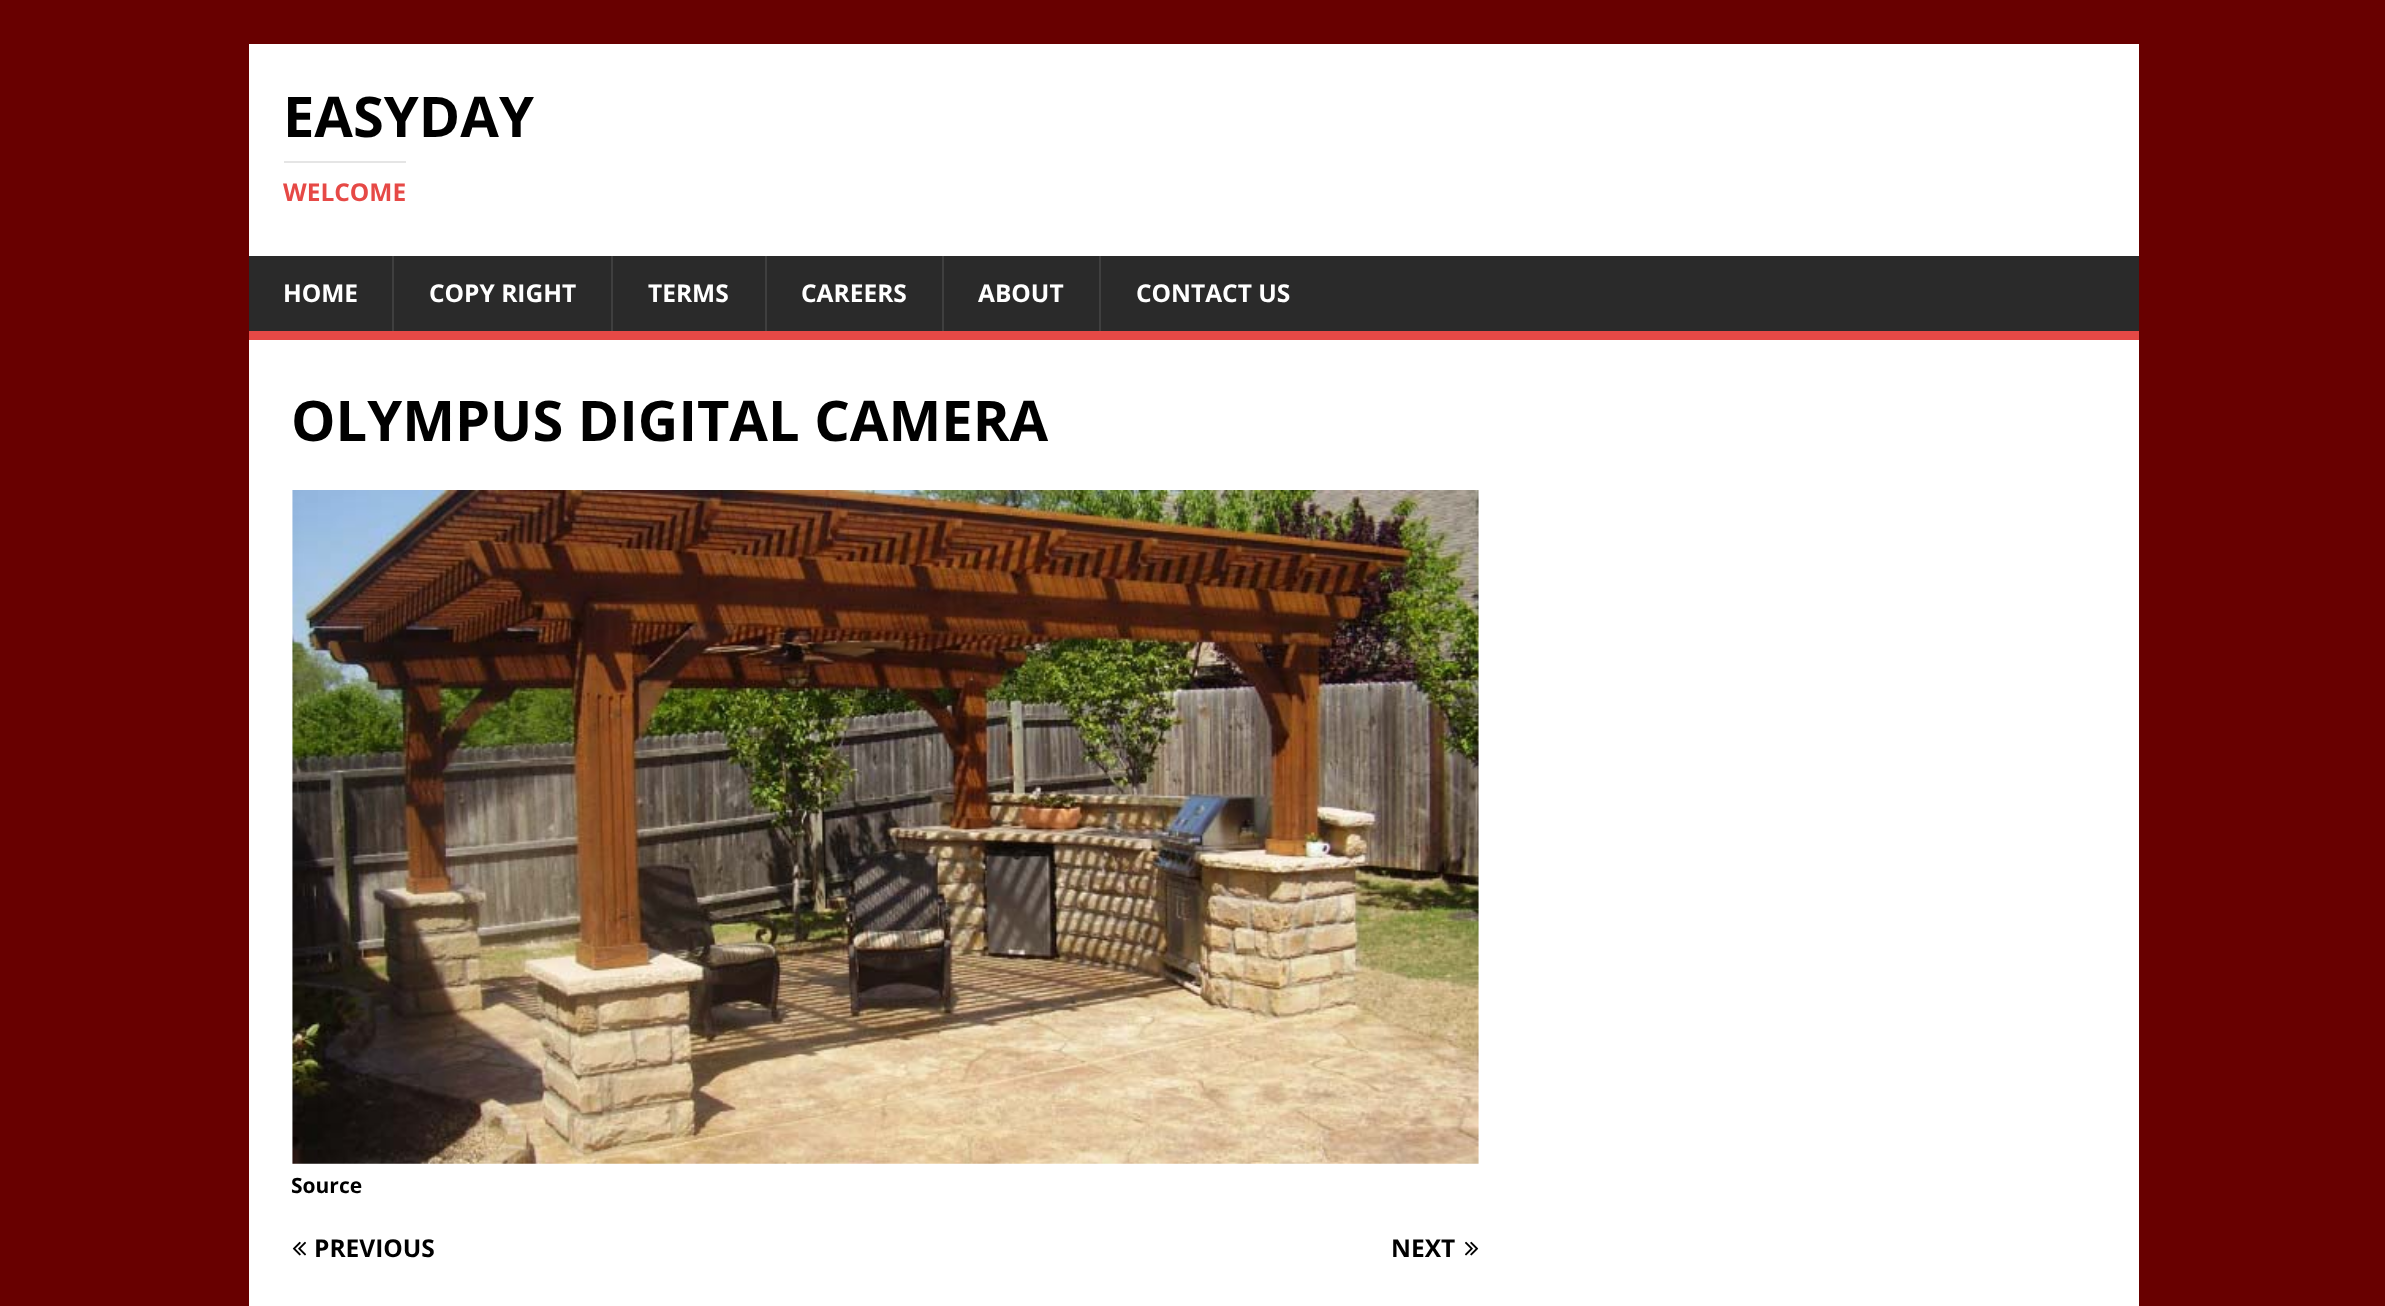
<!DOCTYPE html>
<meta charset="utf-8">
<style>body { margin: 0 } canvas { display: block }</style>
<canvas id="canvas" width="2385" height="1306"></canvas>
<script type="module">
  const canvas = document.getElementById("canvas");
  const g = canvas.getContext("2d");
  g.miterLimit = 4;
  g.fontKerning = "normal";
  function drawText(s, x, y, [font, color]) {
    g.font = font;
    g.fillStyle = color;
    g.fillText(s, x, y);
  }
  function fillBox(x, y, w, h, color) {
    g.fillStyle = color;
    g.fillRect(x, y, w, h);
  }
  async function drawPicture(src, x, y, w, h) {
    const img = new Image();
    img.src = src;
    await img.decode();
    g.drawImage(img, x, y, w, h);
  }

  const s1 = ["bold 56px Open Sans", "#000000"];
  const s2 = ["bold 24.5px Open Sans", "#E64946"];
  const s3 = ["bold 24.5px Open Sans", "#FFFFFF"];
  const s4 = ["bold 21px Open Sans", "#000000"];
  const s5 = ["bold 24.5px Open Sans", "#000000"];

  fillBox(0, 0, 2385, 1306, "#680000");
  fillBox(249, 44, 1890, 212, "#FFFFFF");
  drawText("EASYDAY", 283, 137, s1);
  fillBox(284, 161, 122, 2, "#E5E5E5");
  drawText("WELCOME", 283, 201, s2);
  fillBox(249, 256, 1890, 75, "#2A2A2A");
  fillBox(249, 331, 1890, 9, "#E64946");
  drawText("HOME", 283, 302, s3);
  fillBox(392, 256, 2, 75, "#3F3F3F");
  drawText("COPY RIGHT", 429, 302, s3);
  fillBox(611, 256, 2, 75, "#3F3F3F");
  drawText("TERMS", 648, 302, s3);
  fillBox(765, 256, 2, 75, "#3F3F3F");
  drawText("CAREERS", 801, 302, s3);
  fillBox(942, 256, 2, 75, "#3F3F3F");
  drawText("ABOUT", 978, 302, s3);
  fillBox(1099, 256, 2, 75, "#3F3F3F");
  drawText("CONTACT US", 1136, 302, s3);
  fillBox(249, 340, 1890, 966, "#FFFFFF");
  drawText("OLYMPUS DIGITAL CAMERA", 291, 441, s1);
  await drawPicture("pic1.png", 292, 490, 1187, 674);
  drawText("Source", 291, 1193, s4);
  await drawPicture("pic2.png", 292, 1241, 14, 15);
  drawText("PREVIOUS", 314, 1257, s5);
  drawText("NEXT", 1391, 1257, s5);
  await drawPicture("pic3.png", 1465, 1241, 14, 15);
</script>
